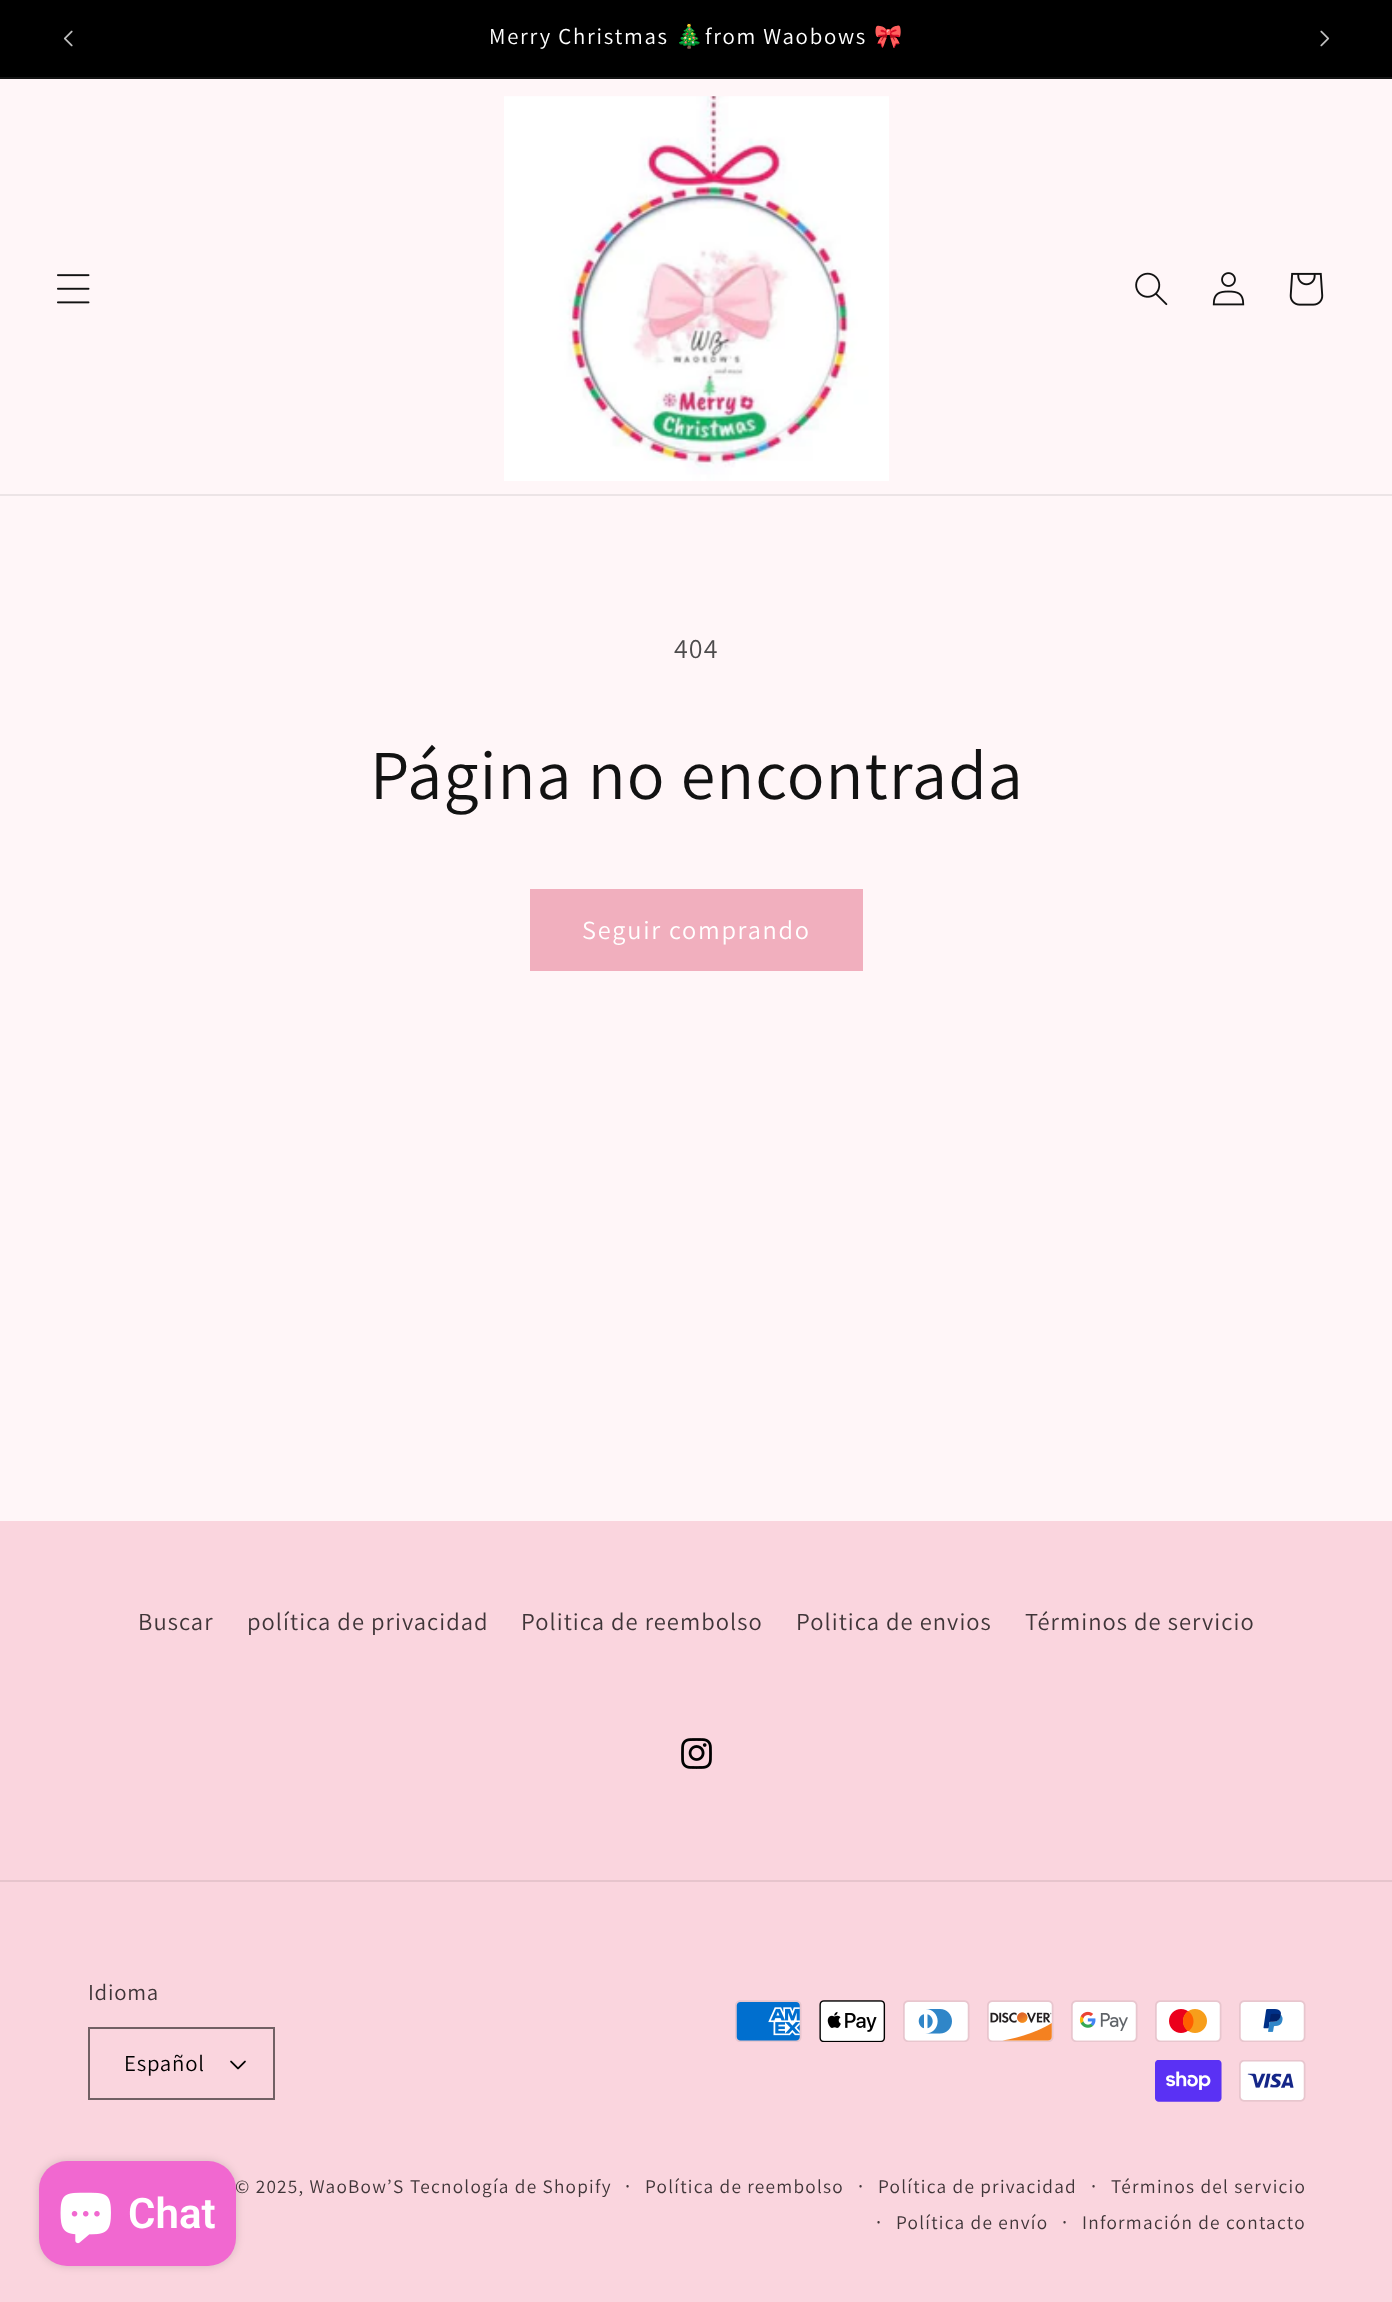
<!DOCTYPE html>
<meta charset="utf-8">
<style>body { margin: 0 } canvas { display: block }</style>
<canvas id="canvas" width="1392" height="2302"></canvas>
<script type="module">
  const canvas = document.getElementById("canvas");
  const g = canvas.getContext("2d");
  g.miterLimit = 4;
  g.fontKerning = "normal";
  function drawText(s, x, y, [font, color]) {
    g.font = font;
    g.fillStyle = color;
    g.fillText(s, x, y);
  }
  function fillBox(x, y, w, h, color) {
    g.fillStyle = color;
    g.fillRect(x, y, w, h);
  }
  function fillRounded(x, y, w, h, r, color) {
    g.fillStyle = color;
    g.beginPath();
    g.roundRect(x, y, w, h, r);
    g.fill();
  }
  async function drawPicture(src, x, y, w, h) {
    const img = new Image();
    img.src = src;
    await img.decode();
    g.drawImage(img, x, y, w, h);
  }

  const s1 = ["22.75px Assistant", "#FFFFFF"];
  const s2 = ["22.75px Noto Color Emoji", "#FFFFFF"];
  const s3 = ["28px Assistant", "#4D4B4C"];
  const s4 = ["70px Assistant", "#121212"];
  const s5 = ["26.25px Assistant", "#FFFFFF"];
  const s6 = ["24.5px Assistant", "#3F3538"];
  const s7 = ["22.75px Assistant", "#3F3538"];
  const s8 = ["22.75px Assistant", "#000000"];
  const s9 = ["19.25px Assistant", "#3F3538"];
  const s10 = ["21px Assistant", "#3F3538"];
  const s11 = ["600 42px Roboto", "#FFFFFF"];

  fillBox(0, 0, 1392, 2302, "#FFF6F8");
  fillBox(0, 0, 1392, 77, "#000000");
  fillBox(0, 77, 1392, 2, "#141414");
  await drawPicture("pic1.png", 63, 30, 10, 17);
  g.letterSpacing = "1.75px";
  drawText("Merry Christmas", 489, 44, s1);
  drawText("🎄", 675, 44, s2);
  drawText("from Waobows", 705, 44, s1);
  drawText("🎀", 874, 44, s2);
  await drawPicture("pic2.png", 1320, 30, 10, 17);
  fillBox(0, 494, 1392, 2, "#ECE4E6");
  await drawPicture("pic3.png", 57, 274, 33, 30);
  await drawPicture("pic4.png", 504, 96, 385, 385);
  await drawPicture("pic5.png", 1135, 272, 33, 34);
  await drawPicture("pic6.png", 1212, 272, 33, 34);
  await drawPicture("pic7.png", 1289, 272, 35, 34);
  g.letterSpacing = "1.05px";
  drawText("404", 674, 658, s3);
  drawText("Página no encontrada", 370, 799, s4);
  fillBox(530, 889, 333, 82, "#F1AFBE");
  g.letterSpacing = "1.75px";
  drawText("Seguir comprando", 582, 939, s5);
  fillBox(0, 1521, 1392, 781, "#FAD5DE");
  g.letterSpacing = "1.05px";
  drawText("Buscar", 138, 1630, s6);
  drawText("política de privacidad", 247, 1630, s6);
  drawText("Politica de reembolso", 521, 1630, s6);
  drawText("Politica de envios", 796, 1630, s6);
  drawText("Términos de servicio", 1025, 1630, s6);
  await drawPicture("pic8.png", 681, 1738, 31, 31);
  fillBox(0, 1880, 1392, 2, "#E6C4CC");
  g.letterSpacing = "0.75px";
  drawText("Idioma", 88, 2000, s7);
  await drawPicture("pic9.png", 230, 2060, 16, 10);
  g.strokeStyle = "#716064";
  g.lineWidth = 2;
  g.strokeRect(89, 2028, 185, 71);
  drawText("Español", 124, 2071, s8);
  await drawPicture("pic10.png", 735, 2000, 67, 42);
  await drawPicture("pic11.png", 819, 2000, 67, 42);
  await drawPicture("pic12.png", 903, 2000, 67, 42);
  await drawPicture("pic13.png", 987, 2000, 67, 42);
  await drawPicture("pic14.png", 1071, 2000, 67, 42);
  await drawPicture("pic15.png", 1155, 2000, 67, 42);
  await drawPicture("pic16.png", 1239, 2000, 67, 42);
  await drawPicture("pic17.png", 1155, 2060, 67, 42);
  await drawPicture("pic18.png", 1239, 2060, 67, 42);
  g.letterSpacing = "1.25px";
  drawText("© 2025, WaoBow’S", 235, 2193, s9);
  drawText("Tecnología de Shopify", 410, 2193, s9);
  drawText("·", 625, 2193, s10);
  drawText("Política de reembolso", 645, 2193, s9);
  drawText("·", 858, 2193, s10);
  drawText("Política de privacidad", 878, 2193, s9);
  drawText("·", 1091, 2193, s10);
  drawText("Términos del servicio", 1111, 2193, s9);
  drawText("·", 876, 2229, s10);
  drawText("Política de envío", 896, 2229, s9);
  drawText("·", 1062, 2229, s10);
  drawText("Información de contacto", 1082, 2229, s9);
  g.fillStyle = "rgba(0, 0, 0, 0.15)";
  g.filter = "blur(4.5px)";
  g.beginPath();
  g.roundRect(39, 2161, 197, 105, 28);
  g.fill();
  g.filter = "none";
  fillRounded(39, 2161, 197, 105, 28, "#F168D0");
  await drawPicture("pic19.png", 60, 2192, 51, 52);
  g.letterSpacing = "0px";
  drawText("Chat", 128, 2228, s11);
</script>
